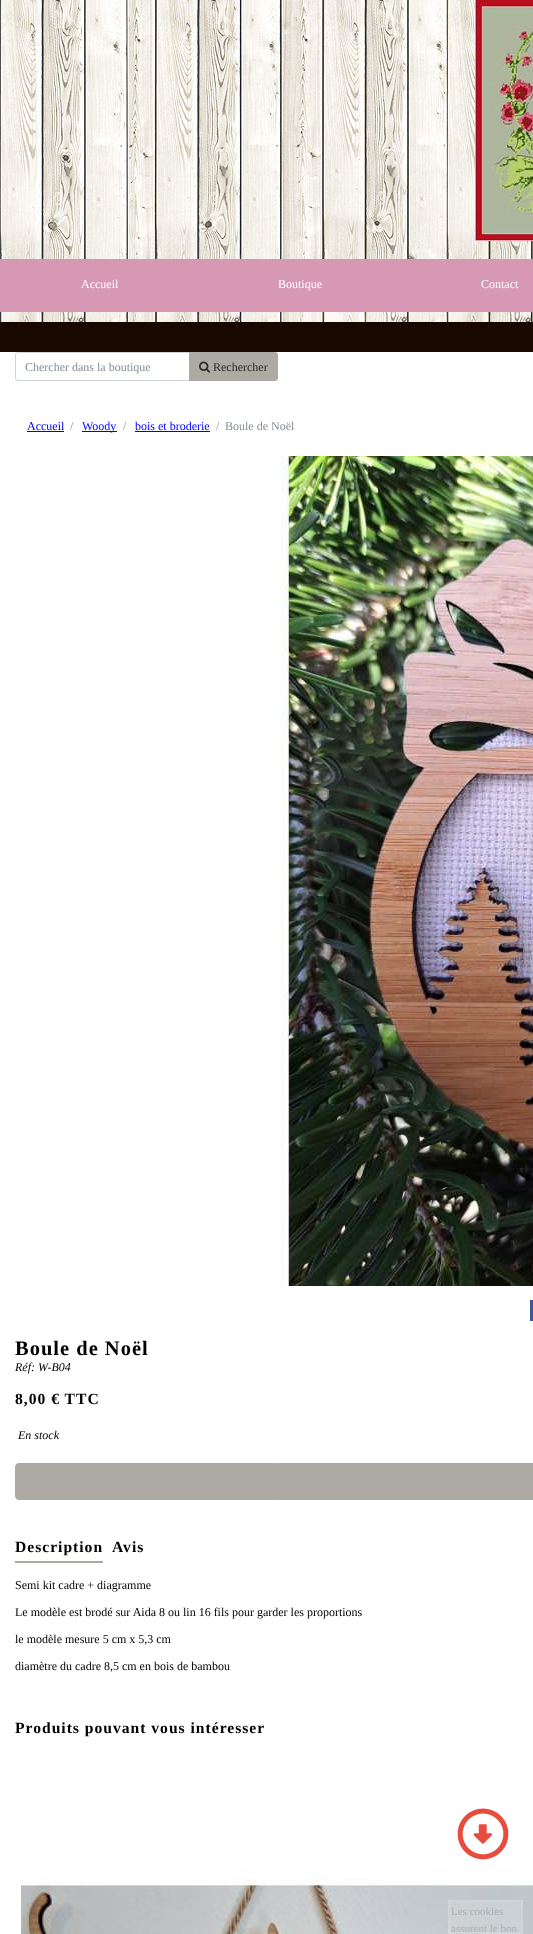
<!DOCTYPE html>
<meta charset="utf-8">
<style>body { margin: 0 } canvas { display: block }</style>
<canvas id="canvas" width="533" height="1934"></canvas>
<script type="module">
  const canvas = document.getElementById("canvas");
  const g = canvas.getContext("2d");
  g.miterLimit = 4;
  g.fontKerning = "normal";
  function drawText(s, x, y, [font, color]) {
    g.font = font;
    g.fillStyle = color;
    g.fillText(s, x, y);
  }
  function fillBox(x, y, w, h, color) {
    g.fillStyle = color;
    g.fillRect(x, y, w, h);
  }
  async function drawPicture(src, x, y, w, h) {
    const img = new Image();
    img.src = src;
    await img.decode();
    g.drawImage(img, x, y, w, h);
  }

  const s1 = ["12px Liberation Serif", "#FFFFFF"];
  const s2 = ["12px Liberation Serif", "#868E96"];
  const s3 = ["12px Liberation Serif", "#2B2926"];
  const s4 = ["12px Liberation Serif", "#0000FF"];
  const s5 = ["bold 20.5px Liberation Serif", "#000000"];
  const s6 = ["italic 12px Liberation Serif", "#000000"];
  const s7 = ["bold 15.6px Liberation Serif", "#000000"];
  const s8 = ["12px Liberation Serif", "#000000"];
  const s9 = ["11px Liberation Serif", "#AAAFB1"];

  fillBox(0, 0, 533, 1934, "#FFFFFF");
  await drawPicture("pic1.png", 0, 0, 533, 322);
  await drawPicture("pic2.png", 475, 0, 58, 241);
  fillBox(0, 259, 533, 53, "#D698B3");
  drawText("Accueil", 81, 288, s1);
  drawText("Boutique", 278, 288, s1);
  drawText("Contact", 481, 288, s1);
  fillBox(0, 322, 533, 30, "#180800");
  g.beginPath();
  g.roundRect(15.5, 352.5, 174, 28, [2.5, 0, 0, 2.5]);
  g.strokeStyle = "#CED4DA";
  g.stroke();
  drawText("Chercher dans la boutique", 25, 371, s2);
  g.fillStyle = "#ADAAA3";
  g.beginPath();
  g.roundRect(189.5, 352.5, 88, 28, [0, 2.5, 2.5, 0]);
  g.fill();
  g.strokeStyle = "#ADAAA3";
  g.stroke();
  await drawPicture("pic3.png", 199, 361, 12, 12);
  drawText("Rechercher", 213, 371, s3);
  drawText("Accueil", 27, 430, s4);
  fillBox(27, 431, 37, 1, "#0000FF");
  drawText("/", 70, 430, s2);
  fillBox(82, 431, 35, 1, "#0000FF");
  drawText("Woody", 82, 430, s4);
  drawText("/", 123, 430, s2);
  drawText("bois et broderie", 135, 430, s4);
  fillBox(135, 431, 75, 1, "#0000FF");
  drawText("/", 216, 430, s2);
  drawText("Boule de Noël", 225, 430, s2);
  await drawPicture("pic4.png", 280, 456, 253, 830);
  fillBox(530, 1300, 3, 21, "#3B5998");
  g.letterSpacing = "1px";
  drawText("Boule de Noël", 15, 1355, s5);
  g.letterSpacing = "0px";
  drawText("Réf: W-B04", 15, 1371, s6);
  g.letterSpacing = "1px";
  drawText("8,00 € TTC", 15, 1404, s7);
  g.letterSpacing = "0px";
  drawText("En stock", 18, 1439, s6);
  g.fillStyle = "#ADAAA3";
  g.beginPath();
  g.roundRect(15.5, 1463.5, 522, 36, 3.5);
  g.fill();
  g.stroke();
  fillBox(15, 1561, 88, 2, "#ADAAA3");
  g.letterSpacing = "1px";
  drawText("Description", 15, 1552, s7);
  drawText("Avis", 112, 1552, s7);
  g.letterSpacing = "0px";
  drawText("Semi kit cadre + diagramme", 15, 1589, s8);
  drawText("Le modèle est brodé sur Aida 8 ou lin 16 fils pour garder les proportions", 15, 1616, s8);
  drawText("le modèle mesure 5 cm x 5,3 cm", 15, 1643, s8);
  drawText("diamètre du cadre 8,5 cm en bois de bambou", 15, 1670, s8);
  g.letterSpacing = "1px";
  drawText("Produits pouvant vous intéresser", 15, 1733, s7);
  await drawPicture("pic5.png", 21, 1867, 512, 67);
  await drawPicture("pic6.png", 457, 1808, 52, 52);
  fillBox(448, 1900, 75, 34, "rgba(247, 247, 247, 0.21)");
  g.strokeStyle = "rgba(227, 227, 227, 0.25)";
  g.lineWidth = 2;
  g.strokeRect(449, 1901, 73, 32);
  g.letterSpacing = "0px";
  drawText("Les cookies", 451, 1915, s9);
  g.save();
  g.beginPath();
  g.rect(450, 1902, 71, 30);
  g.clip();
  drawText("assurent le bon", 451, 1932, s9);
  g.restore();
</script>
